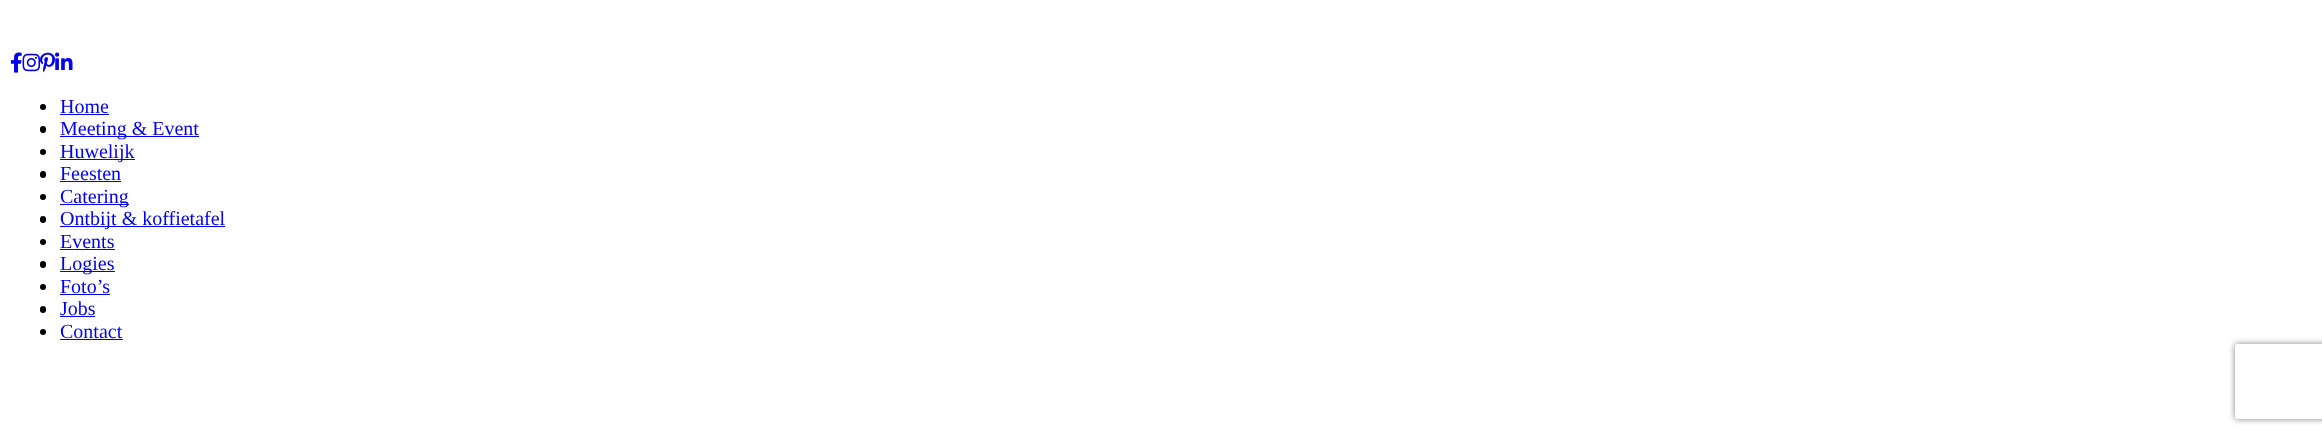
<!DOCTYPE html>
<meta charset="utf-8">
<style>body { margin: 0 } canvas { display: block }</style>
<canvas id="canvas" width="2322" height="436"></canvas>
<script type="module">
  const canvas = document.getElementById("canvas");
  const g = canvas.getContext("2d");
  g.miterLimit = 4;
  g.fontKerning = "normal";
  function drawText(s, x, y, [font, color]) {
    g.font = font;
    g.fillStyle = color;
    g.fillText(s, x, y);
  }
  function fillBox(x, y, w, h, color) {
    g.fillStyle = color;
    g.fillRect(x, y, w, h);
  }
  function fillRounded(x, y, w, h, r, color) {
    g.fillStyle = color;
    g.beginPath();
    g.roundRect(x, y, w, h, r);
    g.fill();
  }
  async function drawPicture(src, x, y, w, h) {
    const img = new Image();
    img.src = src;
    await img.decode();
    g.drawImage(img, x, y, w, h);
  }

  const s1 = ["20px Liberation Serif", "#0000EE"];

  fillBox(0, 0, 2322, 436, "#FFFFFF");
  await drawPicture("pic1.png", 10, 52, 12, 21);
  await drawPicture("pic2.png", 22, 53, 19, 19);
  await drawPicture("pic3.png", 40, 52, 15, 21);
  await drawPicture("pic4.png", 55, 52, 18, 18);
  g.fillStyle = "#000000";
  g.beginPath();
  g.arc(43, 107, 3, 0, Math.PI * 2);
  g.fill();
  drawText("Home", 60, 113, s1);
  fillBox(60, 114, 49, 1, "#0000EE");
  fillRounded(40, 126, 6, 7, 3, "#000000");
  fillBox(60, 136, 139, 1, "#0000EE");
  drawText("Meeting & Event", 60, 135, s1);
  g.fillStyle = "#000000";
  g.beginPath();
  g.arc(43, 152, 3, 0, Math.PI * 2);
  g.fill();
  fillBox(60, 159, 75, 1, "#0000EE");
  drawText("Huwelijk", 60, 158, s1);
  fillRounded(40, 171, 6, 7, 3, "#000000");
  drawText("Feesten", 60, 180, s1);
  fillBox(60, 181, 61, 1, "#0000EE");
  g.fillStyle = "#000000";
  g.beginPath();
  g.arc(43, 197, 3, 0, Math.PI * 2);
  g.fill();
  fillBox(60, 204, 69, 1, "#0000EE");
  drawText("Catering", 60, 203, s1);
  fillRounded(40, 216, 6, 7, 3, "#000000");
  fillBox(60, 226, 165, 1, "#0000EE");
  drawText("Ontbijt & koffietafel", 60, 225, s1);
  g.fillStyle = "#000000";
  g.beginPath();
  g.arc(43, 242, 3, 0, Math.PI * 2);
  g.fill();
  drawText("Events", 60, 248, s1);
  fillBox(60, 249, 55, 1, "#0000EE");
  fillRounded(40, 261, 6, 7, 3, "#000000");
  fillBox(60, 271, 55, 1, "#0000EE");
  drawText("Logies", 60, 270, s1);
  g.fillStyle = "#000000";
  g.beginPath();
  g.arc(43, 287, 3, 0, Math.PI * 2);
  g.fill();
  drawText("Foto’s", 60, 293, s1);
  fillBox(60, 294, 50, 1, "#0000EE");
  fillRounded(40, 306, 6, 7, 3, "#000000");
  drawText("Jobs", 60, 315, s1);
  fillBox(60, 316, 35, 1, "#0000EE");
  g.fillStyle = "#000000";
  g.beginPath();
  g.arc(43, 332, 3, 0, Math.PI * 2);
  g.fill();
  drawText("Contact", 60, 338, s1);
  fillBox(60, 339, 63, 1, "#0000EE");
  g.save();
  g.beginPath();
  g.moveTo(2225, 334);
  g.lineTo(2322, 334);
  g.lineTo(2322, 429);
  g.lineTo(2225, 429);
  g.closePath();
  g.moveTo(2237.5, 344);
  g.lineTo(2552.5, 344);
  g.bezierCurveTo(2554, 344, 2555, 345, 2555, 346.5);
  g.lineTo(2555, 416.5);
  g.bezierCurveTo(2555, 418, 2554, 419, 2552.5, 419);
  g.lineTo(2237.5, 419);
  g.bezierCurveTo(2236, 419, 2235, 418, 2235, 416.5);
  g.lineTo(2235, 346.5);
  g.bezierCurveTo(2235, 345, 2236, 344, 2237.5, 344);
  g.closePath();
  g.clip("evenodd");
  g.fillStyle = "#808080";
  g.filter = "blur(3px)";
  g.beginPath();
  g.roundRect(2235, 344, 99, 75, 2.5);
  g.fill();
  g.filter = "none";
  g.restore();
</script>
